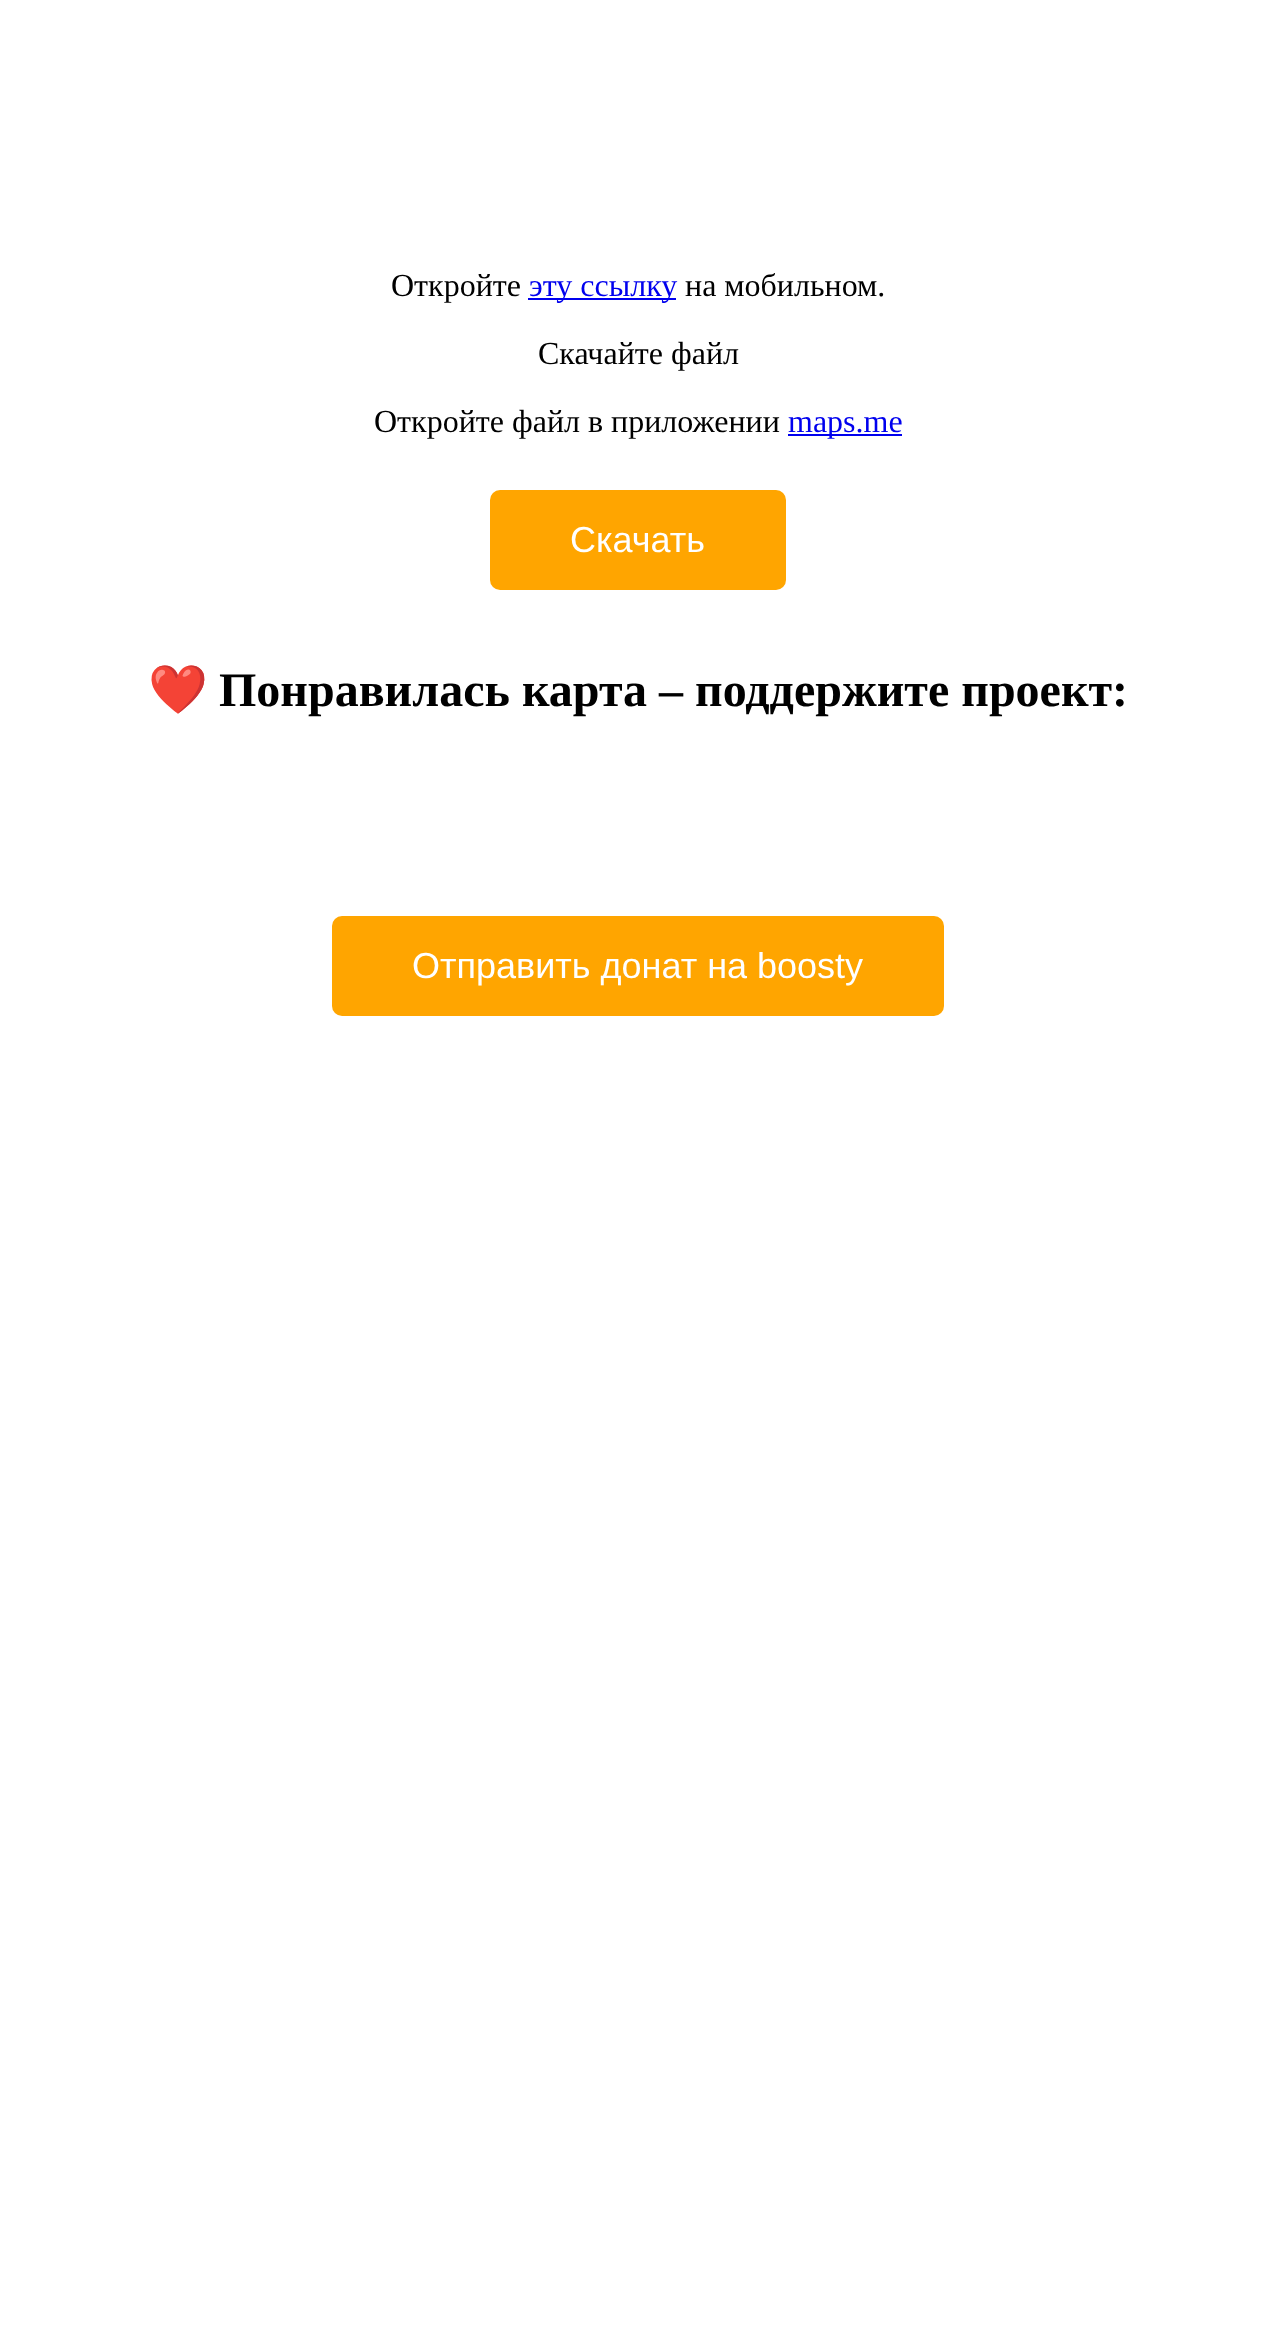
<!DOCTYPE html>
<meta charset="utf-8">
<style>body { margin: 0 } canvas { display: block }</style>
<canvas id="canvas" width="1276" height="2346"></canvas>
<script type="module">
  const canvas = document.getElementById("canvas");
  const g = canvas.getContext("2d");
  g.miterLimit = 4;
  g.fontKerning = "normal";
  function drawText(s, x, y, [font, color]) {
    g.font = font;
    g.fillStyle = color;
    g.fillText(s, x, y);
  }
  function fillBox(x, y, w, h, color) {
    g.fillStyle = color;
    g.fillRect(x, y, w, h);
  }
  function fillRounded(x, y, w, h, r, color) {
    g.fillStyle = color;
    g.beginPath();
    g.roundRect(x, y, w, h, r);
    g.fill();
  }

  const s1 = ["32px Liberation Serif", "#000000"];
  const s2 = ["32px Liberation Serif", "#0000EE"];
  const s3 = ["36px Liberation Sans", "#FFFFFF"];
  const s4 = ["bold 48px Noto Color Emoji", "#000000"];
  const s5 = ["bold 48px Liberation Serif", "#000000"];

  fillBox(0, 0, 1276, 2346, "#FFFFFF");
  drawText("Откройте", 391, 296, s1);
  fillBox(528, 298, 148, 2, "#0000EE");
  drawText("эту ссылку", 529, 296, s2);
  drawText("на мобильном.", 685, 296, s1);
  drawText("Скачайте файл", 538, 364, s1);
  drawText("Откройте файл в приложении", 374, 432, s1);
  fillBox(788, 434, 114, 2, "#0000EE");
  drawText("maps.me", 788, 432, s2);
  fillRounded(490, 490, 296, 100, 10, "#FFA500");
  drawText("Cкачать", 570, 552, s3);
  drawText("❤️", 148, 706, s4);
  drawText("Понравилась карта – поддержите проект:", 219, 706, s5);
  fillRounded(332, 916, 612, 100, 10, "#FFA500");
  drawText("Отправить донат на boosty", 412, 978, s3);
</script>
